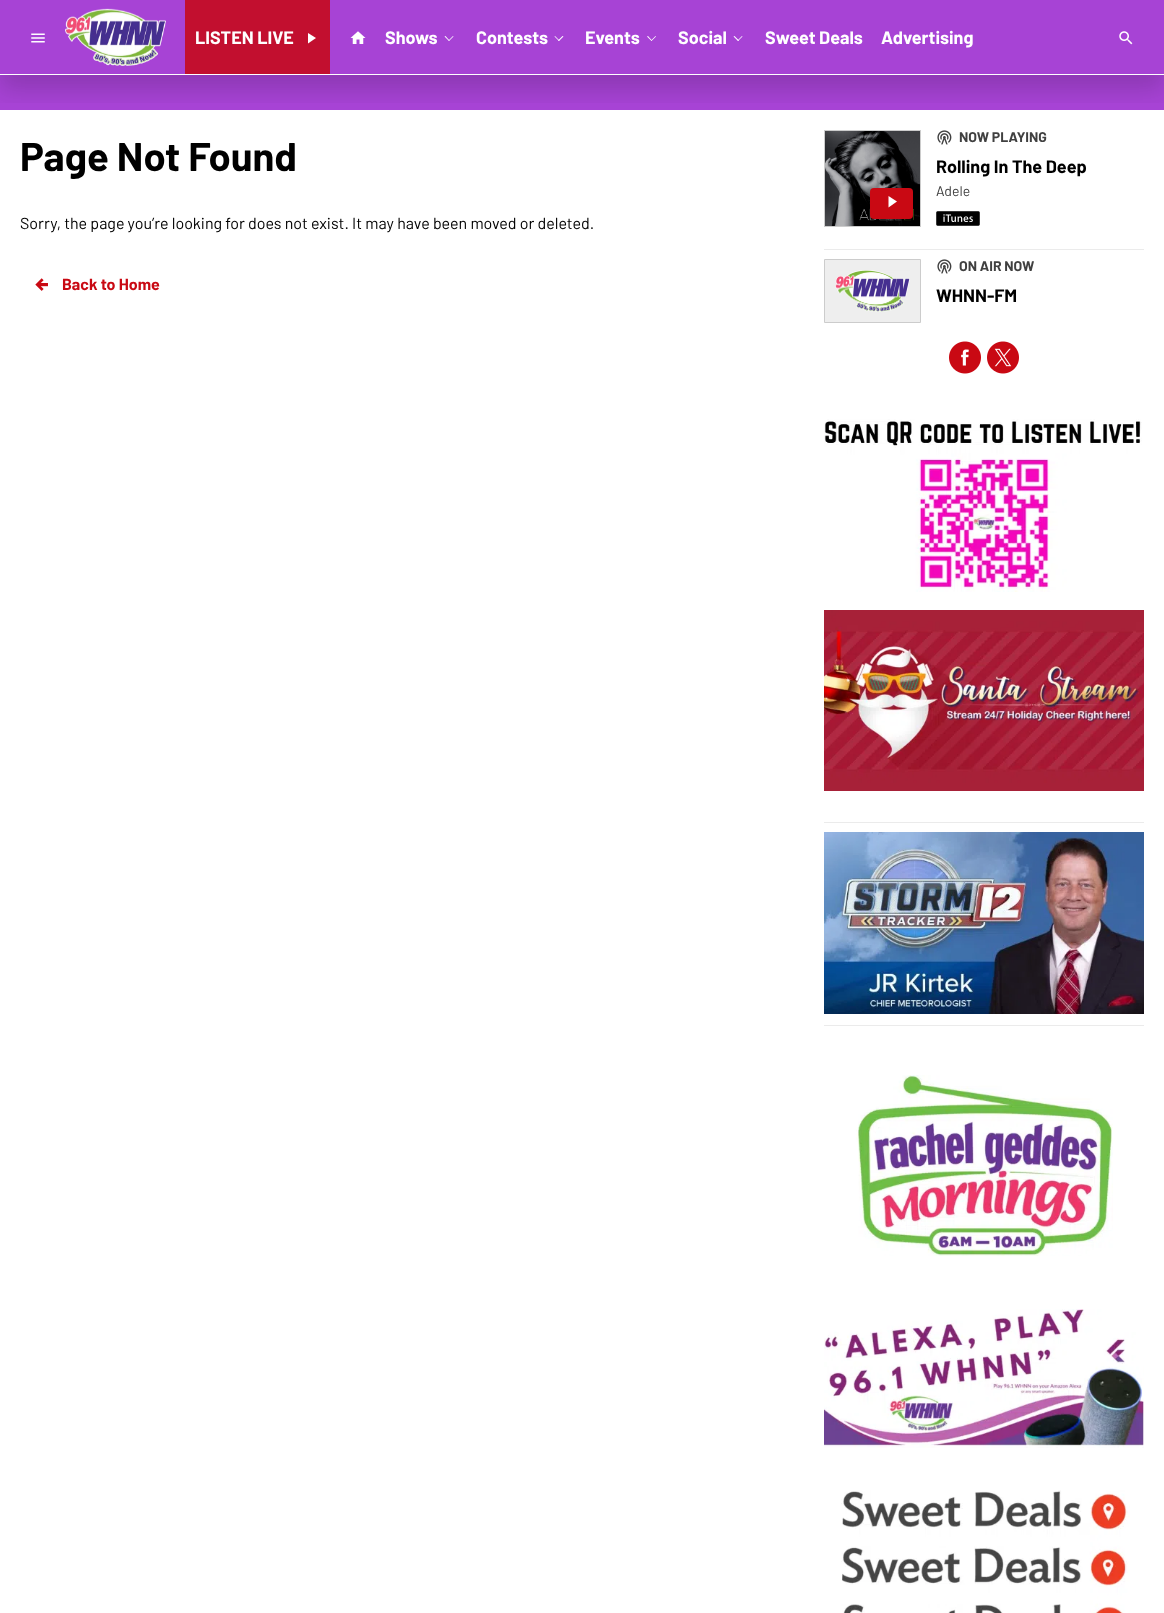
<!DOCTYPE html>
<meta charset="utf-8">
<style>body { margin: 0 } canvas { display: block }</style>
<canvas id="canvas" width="1164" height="1613"></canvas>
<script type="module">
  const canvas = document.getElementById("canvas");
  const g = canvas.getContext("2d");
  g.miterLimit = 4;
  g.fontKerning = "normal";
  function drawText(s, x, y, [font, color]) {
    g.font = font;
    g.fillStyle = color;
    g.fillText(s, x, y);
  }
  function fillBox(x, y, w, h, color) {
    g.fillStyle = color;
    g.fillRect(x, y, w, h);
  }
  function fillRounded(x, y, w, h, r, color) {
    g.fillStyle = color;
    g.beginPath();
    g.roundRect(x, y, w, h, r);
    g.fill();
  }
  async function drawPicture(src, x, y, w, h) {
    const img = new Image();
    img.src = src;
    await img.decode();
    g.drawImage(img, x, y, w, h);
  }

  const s1 = ["bold 18px Barlow", "#FFFFFF"];
  const s2 = ["bold 40px Barlow", "#000000"];
  const s3 = ["16px Barlow", "#000000"];
  const s4 = ["bold 16px Barlow", "#C90913"];
  const s5 = ["bold 14px Barlow", "#404040"];
  const s6 = ["bold 18px Barlow", "#000000"];
  const s7 = ["14px Barlow", "#404040"];

  fillBox(0, 0, 1164, 1613, "#A743D5");
  fillBox(0, 110, 1164, 1503, "#FFFFFF");
  g.save();
  g.beginPath();
  g.rect(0, 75, 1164, 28);
  g.clip();
  g.fillStyle = "rgba(0, 0, 0, 0.16)";
  g.filter = "blur(12.5px)";
  g.beginPath();
  g.rect(0, 14, 1164, 75);
  g.fill();
  g.filter = "none";
  g.restore();
  fillBox(0, 74, 1164, 1, "#FFFFFF");
  await drawPicture("pic1.png", 31, 33, 14, 10);
  await drawPicture("pic2.png", 65, 8, 101, 58);
  fillBox(185, 0, 145, 74, "#C20F2F");
  drawText("LISTEN LIVE", 195, 44, s1);
  g.beginPath();
  g.moveTo(308, 33);
  g.lineTo(308, 43.5);
  g.lineTo(316, 38);
  g.closePath();
  g.fill();
  await drawPicture("pic3.png", 350, 31, 16, 13);
  drawText("Shows", 385, 44, s1);
  g.beginPath();
  g.moveTo(453.5, 36.5);
  g.lineTo(449, 41);
  g.lineTo(448.5, 40.5);
  g.lineTo(453, 36);
  g.closePath();
  g.fill();
  g.beginPath();
  g.moveTo(449.5, 40.5);
  g.lineTo(449, 41);
  g.lineTo(444.5, 36.5);
  g.lineTo(445.5, 36);
  g.closePath();
  g.fill();
  drawText("Contests", 476, 44, s1);
  g.beginPath();
  g.moveTo(563.5, 36.5);
  g.lineTo(559, 41);
  g.lineTo(558, 40.5);
  g.lineTo(562.5, 36);
  g.closePath();
  g.fill();
  g.beginPath();
  g.moveTo(559.5, 40.5);
  g.lineTo(559, 41);
  g.lineTo(554.5, 36.5);
  g.lineTo(555, 36);
  g.closePath();
  g.fill();
  drawText("Events", 585, 44, s1);
  g.beginPath();
  g.moveTo(656, 36.5);
  g.lineTo(651.5, 41);
  g.lineTo(651, 40.5);
  g.lineTo(655.5, 36);
  g.closePath();
  g.fill();
  g.beginPath();
  g.moveTo(652, 40.5);
  g.lineTo(651.5, 41);
  g.lineTo(647, 36.5);
  g.lineTo(648, 36);
  g.closePath();
  g.fill();
  drawText("Social", 678, 44, s1);
  g.beginPath();
  g.moveTo(742.5, 36.5);
  g.lineTo(738, 41);
  g.lineTo(737.5, 40.5);
  g.lineTo(742, 36);
  g.closePath();
  g.fill();
  g.beginPath();
  g.moveTo(739, 40.5);
  g.lineTo(738, 41);
  g.lineTo(733.5, 36.5);
  g.lineTo(734.5, 36);
  g.closePath();
  g.fill();
  drawText("Sweet Deals", 765, 44, s1);
  drawText("Advertising", 881, 44, s1);
  await drawPicture("pic4.png", 1119, 31, 14, 14);
  drawText("Page Not Found", 20, 171, s2);
  drawText("Sorry, the page you’re looking for does not exist. It may have been moved or deleted.", 20, 229, s3);
  await drawPicture("pic5.png", 35, 278, 13, 13);
  drawText("Back to Home", 62, 290, s4);
  g.strokeStyle = "#CCCCCC";
  g.strokeRect(824.5, 130.5, 96, 96);
  await drawPicture("pic6.png", 825, 131, 95, 95);
  fillRounded(870, 188, 43, 31, 4, "#C90913");
  g.fillStyle = "#FFFFFF";
  g.beginPath();
  g.moveTo(888.5, 196);
  g.lineTo(888.5, 207.5);
  g.lineTo(897, 201.5);
  g.closePath();
  g.fill();
  await drawPicture("pic7.png", 937, 130, 15, 15);
  drawText("NOW PLAYING", 959, 142, s5);
  drawText("Rolling In The Deep", 936, 173, s6);
  drawText("Adele", 936, 196, s7);
  await drawPicture("pic8.png", 936, 211, 44, 15);
  fillBox(824, 249, 320, 1, "#EBEBEB");
  g.fillStyle = "#EEEEEE";
  g.beginPath();
  g.rect(824.5, 259.5, 96, 63);
  g.fill();
  g.stroke();
  await drawPicture("pic9.png", 835, 270, 75, 42);
  await drawPicture("pic7.png", 937, 259, 15, 15);
  drawText("ON AIR NOW", 959, 271, s5);
  drawText("WHNN-FM", 936, 302, s6);
  await drawPicture("pic10.png", 949, 341, 32, 33);
  await drawPicture("pic11.png", 987, 341, 32, 33);
  await drawPicture("pic12.png", 824, 419, 318, 173);
  await drawPicture("pic13.png", 824, 610, 320, 181);
  fillBox(824, 822, 320, 1, "#EBEBEB");
  await drawPicture("pic14.png", 824, 832, 320, 182);
  fillBox(824, 1025, 320, 1, "#EBEBEB");
  await drawPicture("pic15.png", 856, 1075, 257, 181);
  await drawPicture("pic16.png", 824, 1309, 320, 139);
  await drawPicture("pic17.png", 841, 1490, 289, 123);
</script>
